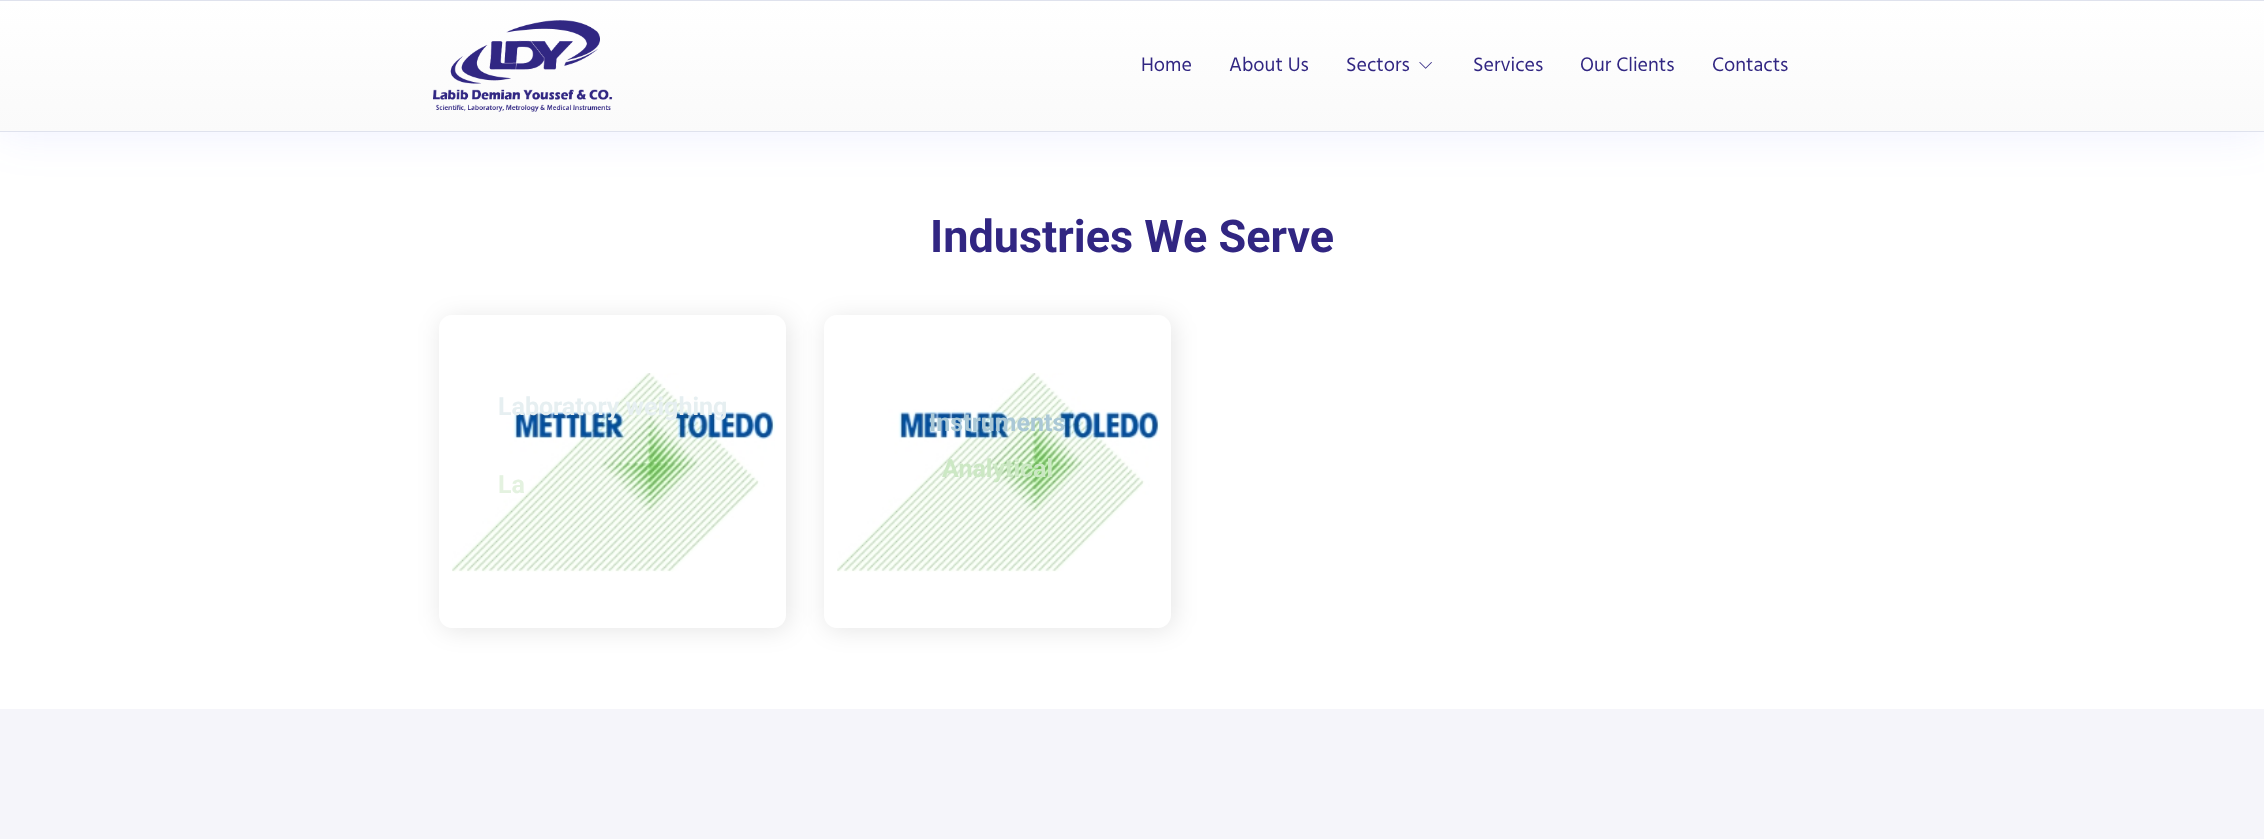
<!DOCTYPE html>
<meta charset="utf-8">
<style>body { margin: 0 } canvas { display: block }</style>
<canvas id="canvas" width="2264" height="839"></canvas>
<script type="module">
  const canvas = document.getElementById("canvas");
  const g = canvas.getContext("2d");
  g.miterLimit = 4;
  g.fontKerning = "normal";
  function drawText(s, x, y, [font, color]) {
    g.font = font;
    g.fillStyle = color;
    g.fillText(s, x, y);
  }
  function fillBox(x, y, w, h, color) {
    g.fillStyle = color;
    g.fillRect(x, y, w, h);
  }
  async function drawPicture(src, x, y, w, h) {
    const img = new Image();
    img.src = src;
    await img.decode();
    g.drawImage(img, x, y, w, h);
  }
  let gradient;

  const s1 = ["20px Hind", "#312682"];
  const s2 = ["bold 45px Roboto", "#312682"];
  const s3 = ["bold 25px Roboto", "#E6EFF1"];
  const s4 = ["bold 25px Roboto", "#E4F2E0"];
  const s5 = ["bold 25px Roboto", "#AAC8D6"];
  const s6 = ["bold 25px Roboto", "#CCE8C4"];

  fillBox(0, 0, 2264, 839, "#FFFFFF");
  g.fillStyle = "rgba(86, 109, 251, 0.1)";
  g.filter = "blur(23px)";
  g.beginPath();
  g.rect(0, 0, 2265, 133);
  g.fill();
  g.filter = "none";
  gradient = g.createLinearGradient(1133, 1.2, 1133, 131);
  gradient.addColorStop(0, "#FFFFFF");
  gradient.addColorStop(1, "#FAFAFA");
  g.fillStyle = gradient;
  g.fillRect(0, 1, 2264, 130);
  fillBox(0, 0, 2264, 1, "#DFE2ED");
  fillBox(0, 131, 2264, 1, "#DFE2ED");
  await drawPicture("pic1.png", 433, 20, 180, 92);
  drawText("Home", 1141, 71, s1);
  drawText("About Us", 1229, 71, s1);
  drawText("Sectors", 1346, 71, s1);
  await drawPicture("pic2.png", 1419, 62, 13, 7);
  drawText("Services", 1473, 71, s1);
  drawText("Our Clients", 1580, 71, s1);
  drawText("Contacts", 1712, 71, s1);
  drawText("Industries We Serve", 930, 252, s2);
  g.save();
  g.beginPath();
  g.moveTo(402, 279);
  g.lineTo(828, 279);
  g.lineTo(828, 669);
  g.lineTo(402, 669);
  g.closePath();
  g.moveTo(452, 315);
  g.lineTo(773, 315);
  g.bezierCurveTo(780, 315, 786, 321, 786, 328);
  g.lineTo(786, 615);
  g.bezierCurveTo(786, 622, 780, 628, 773, 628);
  g.lineTo(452, 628);
  g.bezierCurveTo(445, 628, 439, 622, 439, 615);
  g.lineTo(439, 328);
  g.bezierCurveTo(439, 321, 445, 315, 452, 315);
  g.closePath();
  g.clip("evenodd");
  g.fillStyle = "rgba(0, 0, 0, 0.1)";
  g.filter = "blur(12.5px)";
  g.beginPath();
  g.roundRect(441, 318, 348, 312, 13);
  g.fill();
  g.filter = "none";
  g.restore();
  await drawPicture("pic3.png", 452, 373, 323, 199);
  drawText("Laboratory weighing", 498, 415, s3);
  drawText("La", 498, 493, s4);
  g.save();
  g.beginPath();
  g.moveTo(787, 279);
  g.lineTo(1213, 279);
  g.lineTo(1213, 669);
  g.lineTo(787, 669);
  g.closePath();
  g.moveTo(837, 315);
  g.lineTo(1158, 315);
  g.bezierCurveTo(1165, 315, 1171, 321, 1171, 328);
  g.lineTo(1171, 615);
  g.bezierCurveTo(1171, 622, 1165, 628, 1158, 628);
  g.lineTo(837, 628);
  g.bezierCurveTo(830, 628, 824, 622, 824, 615);
  g.lineTo(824, 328);
  g.bezierCurveTo(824, 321, 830, 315, 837, 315);
  g.closePath();
  g.clip("evenodd");
  g.fillStyle = "rgba(0, 0, 0, 0.1)";
  g.filter = "blur(12.5px)";
  g.beginPath();
  g.roundRect(826, 318, 348, 312, 13);
  g.fill();
  g.filter = "none";
  g.restore();
  await drawPicture("pic3.png", 837, 373, 323, 199);
  drawText("Instruments", 929, 431, s5);
  drawText("Analytical", 942, 477, s6);
  fillBox(0, 709, 2264, 130, "#F5F5FA");
</script>
